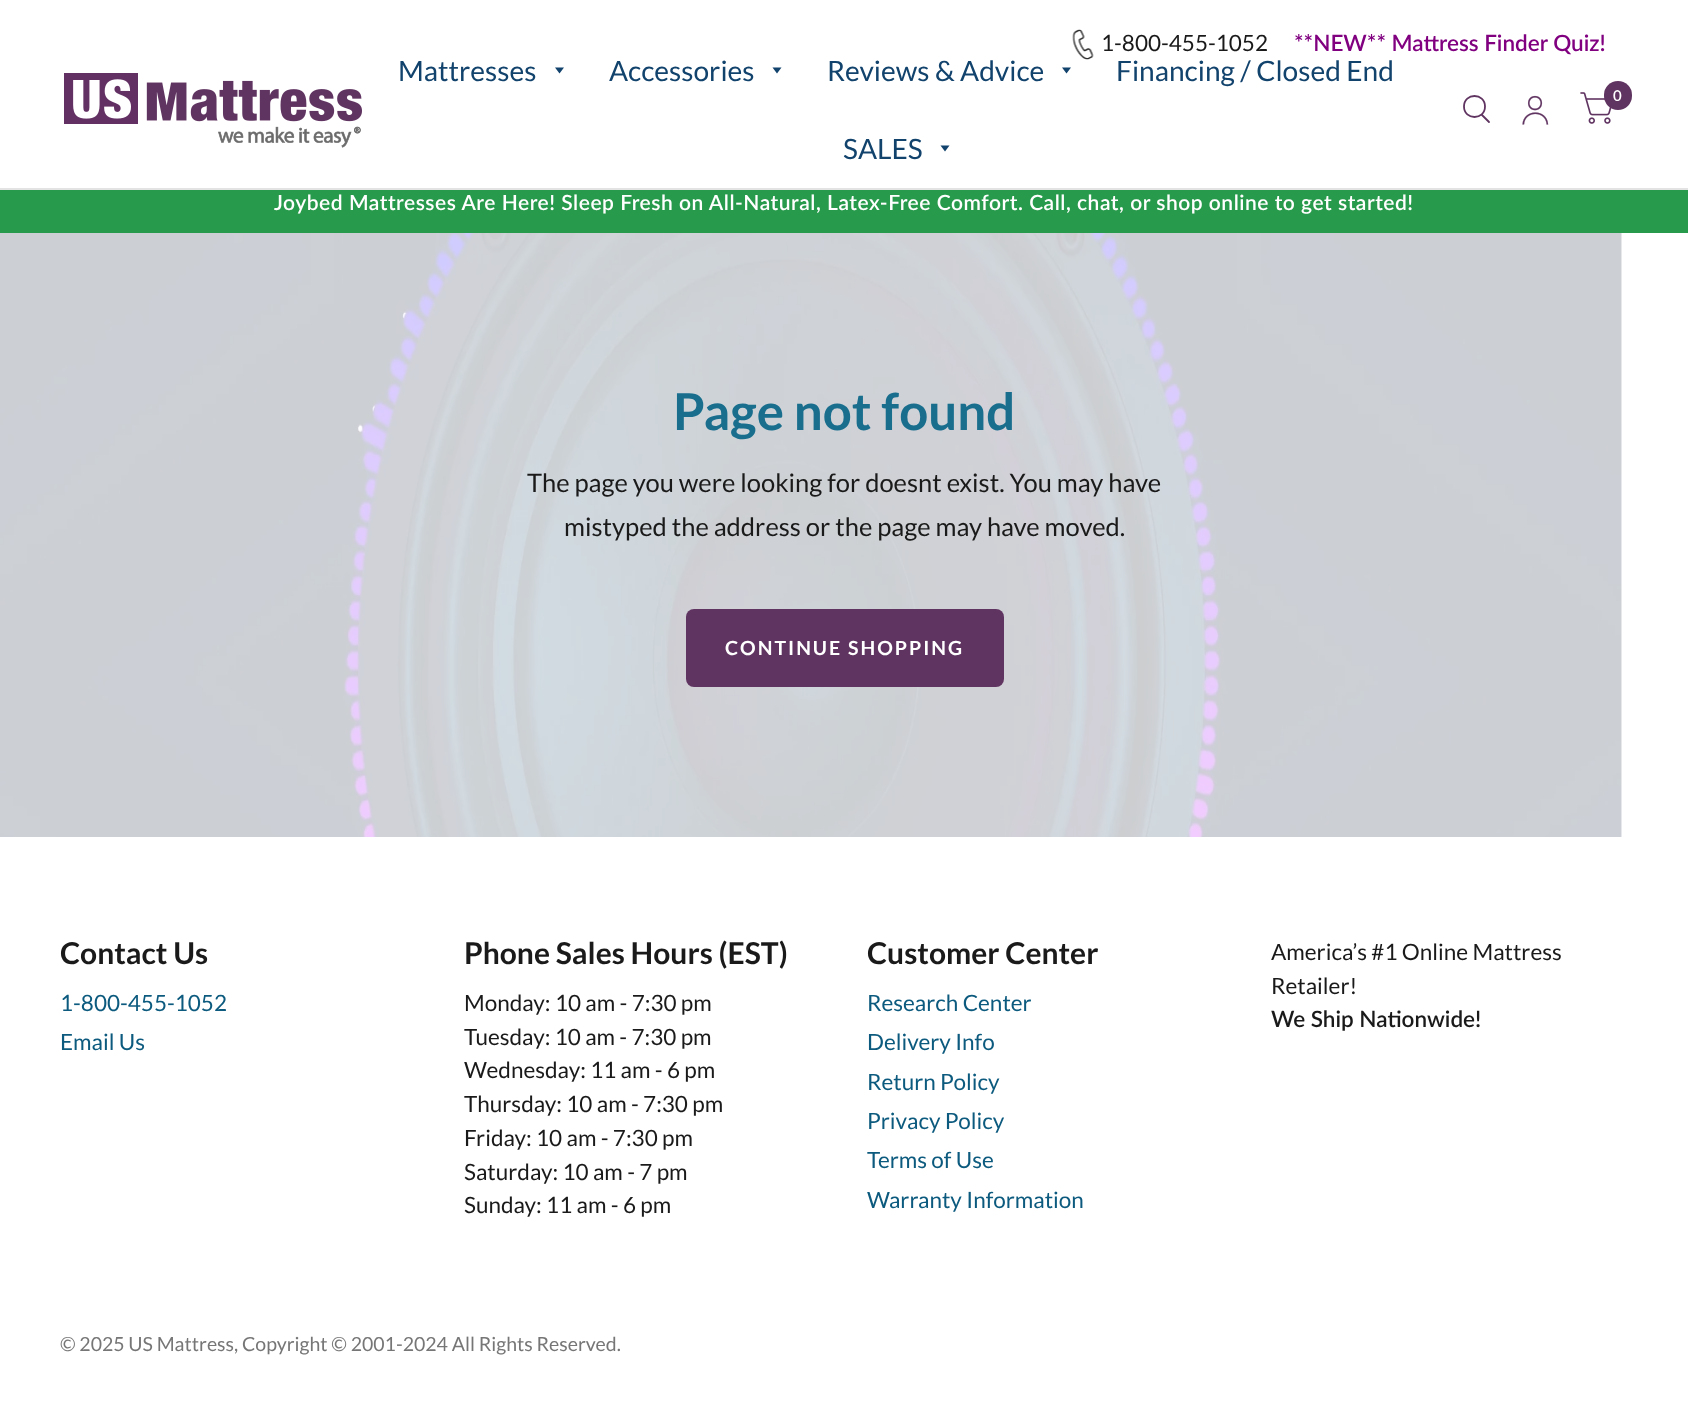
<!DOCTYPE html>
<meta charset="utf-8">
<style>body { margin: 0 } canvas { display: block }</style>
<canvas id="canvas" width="1688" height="1411"></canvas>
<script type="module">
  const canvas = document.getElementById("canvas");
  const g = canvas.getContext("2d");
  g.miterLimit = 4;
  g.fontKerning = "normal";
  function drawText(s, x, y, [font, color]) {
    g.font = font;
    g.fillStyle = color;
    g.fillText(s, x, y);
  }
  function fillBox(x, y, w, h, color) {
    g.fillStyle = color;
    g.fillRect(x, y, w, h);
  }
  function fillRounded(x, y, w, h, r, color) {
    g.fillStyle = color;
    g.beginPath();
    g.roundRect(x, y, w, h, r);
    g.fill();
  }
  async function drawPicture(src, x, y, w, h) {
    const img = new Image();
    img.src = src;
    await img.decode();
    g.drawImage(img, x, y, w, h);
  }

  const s1 = ["22.5px Lato", "#1A1A1A"];
  const s2 = ["600 22.5px Lato", "#800080"];
  const s3 = ["28.1px Lato", "#12436D"];
  const s4 = ["600 15px Lato", "#FFFFFF"];
  const s5 = ["600 21px Lato", "#FFFFFF"];
  const s6 = ["bold 51px Lato", "#196E8E"];
  const s7 = ["25.5px Lato", "#1A1A1A"];
  const s8 = ["bold 19.5px Lato", "#FFFFFF"];
  const s9 = ["bold 30px Lato", "#1A1A1A"];
  const s10 = ["22.5px Lato", "#0C5A7E"];
  const s11 = ["600 22.5px Lato", "#1A1A1A"];
  const s12 = ["19.5px Lato", "#767676"];

  fillBox(0, 0, 1688, 1411, "#FFFFFF");
  fillBox(0, 188, 1688, 2, "#E3E3E3");
  await drawPicture("pic1.png", 1072, 29, 22, 31);
  drawText("1-800-455-1052", 1101, 51, s1);
  drawText("**NEW** Mattress Finder Quiz!", 1294, 51, s2);
  await drawPicture("pic2.png", 64, 73, 298, 75);
  drawText("Mattresses", 398, 81, s3);
  g.beginPath();
  g.moveTo(555, 67.5);
  g.lineTo(564, 67.5);
  g.lineTo(559.5, 73.5);
  g.closePath();
  g.fill();
  drawText("Accessories", 609, 81, s3);
  g.beginPath();
  g.moveTo(772.5, 67.5);
  g.lineTo(781.5, 67.5);
  g.lineTo(777, 73.5);
  g.closePath();
  g.fill();
  drawText("Reviews & Advice", 827, 81, s3);
  g.beginPath();
  g.moveTo(1062, 67.5);
  g.lineTo(1071, 67.5);
  g.lineTo(1066.5, 73.5);
  g.closePath();
  g.fill();
  drawText("Financing / Closed End", 1116, 81, s3);
  drawText("SALES", 843, 159, s3);
  g.beginPath();
  g.moveTo(940.5, 145.5);
  g.lineTo(949.5, 145.5);
  g.lineTo(945, 151.5);
  g.closePath();
  g.fill();
  g.beginPath();
  g.moveTo(1482, 115);
  g.lineTo(1489, 122);
  g.moveTo(1485, 106.5);
  g.bezierCurveTo(1485, 120.5, 1464, 120.5, 1464, 106.5);
  g.bezierCurveTo(1464, 92.5, 1485, 92.5, 1485, 106.5);
  g.closePath();
  g.strokeStyle = "#603461";
  g.lineWidth = 1.8;
  g.lineCap = "round";
  g.lineJoin = "round";
  g.stroke();
  await drawPicture("pic3.png", 1522, 95, 27, 30);
  await drawPicture("pic4.png", 1580, 92, 32, 32);
  fillRounded(1604, 81, 28, 29, 14, "#603461");
  drawText("0", 1613, 101, s4);
  fillBox(0, 190, 1688, 43, "#279A4B");
  g.letterSpacing = "0.52px";
  drawText("Joybed Mattresses Are Here! Sleep Fresh on All-Natural, Latex-Free Comfort. Call, chat, or shop online to get started!", 274, 210, s5);
  await drawPicture("pic5.png", 0, 233, 1622, 604);
  g.letterSpacing = "0px";
  drawText("Page not found", 673, 430, s6);
  drawText("The page you were looking for doesnt exist. You may have", 527, 492, s7);
  drawText("mistyped the address or the page may have moved.", 564, 536, s7);
  fillRounded(686, 609, 318, 78, 8, "#603461");
  g.letterSpacing = "2px";
  drawText("CONTINUE SHOPPING", 725, 655, s8);
  g.letterSpacing = "0px";
  drawText("Contact Us", 60, 964, s9);
  drawText("1-800-455-1052", 60, 1011, s10);
  drawText("Email Us", 60, 1050, s10);
  drawText("Phone Sales Hours (EST)", 464, 964, s9);
  drawText("Monday: 10 am - 7:30 pm", 464, 1011, s1);
  drawText("Tuesday: 10 am - 7:30 pm", 464, 1045, s1);
  drawText("Wednesday: 11 am - 6 pm", 464, 1078, s1);
  drawText("Thursday: 10 am - 7:30 pm", 464, 1112, s1);
  drawText("Friday: 10 am - 7:30 pm", 464, 1146, s1);
  drawText("Saturday: 10 am - 7 pm", 464, 1180, s1);
  drawText("Sunday: 11 am - 6 pm", 464, 1213, s1);
  drawText("Customer Center", 867, 964, s9);
  drawText("Research Center", 867, 1011, s10);
  drawText("Delivery Info", 867, 1050, s10);
  drawText("Return Policy", 867, 1090, s10);
  drawText("Privacy Policy", 867, 1129, s10);
  drawText("Terms of Use", 867, 1168, s10);
  drawText("Warranty Information", 867, 1208, s10);
  drawText("America’s #1 Online Mattress", 1271, 960, s1);
  drawText("Retailer!", 1271, 994, s1);
  drawText("We Ship Nationwide!", 1271, 1027, s11);
  drawText("© 2025 US Mattress, Copyright © 2001-2024 All Rights Reserved.", 60, 1351, s12);
</script>
